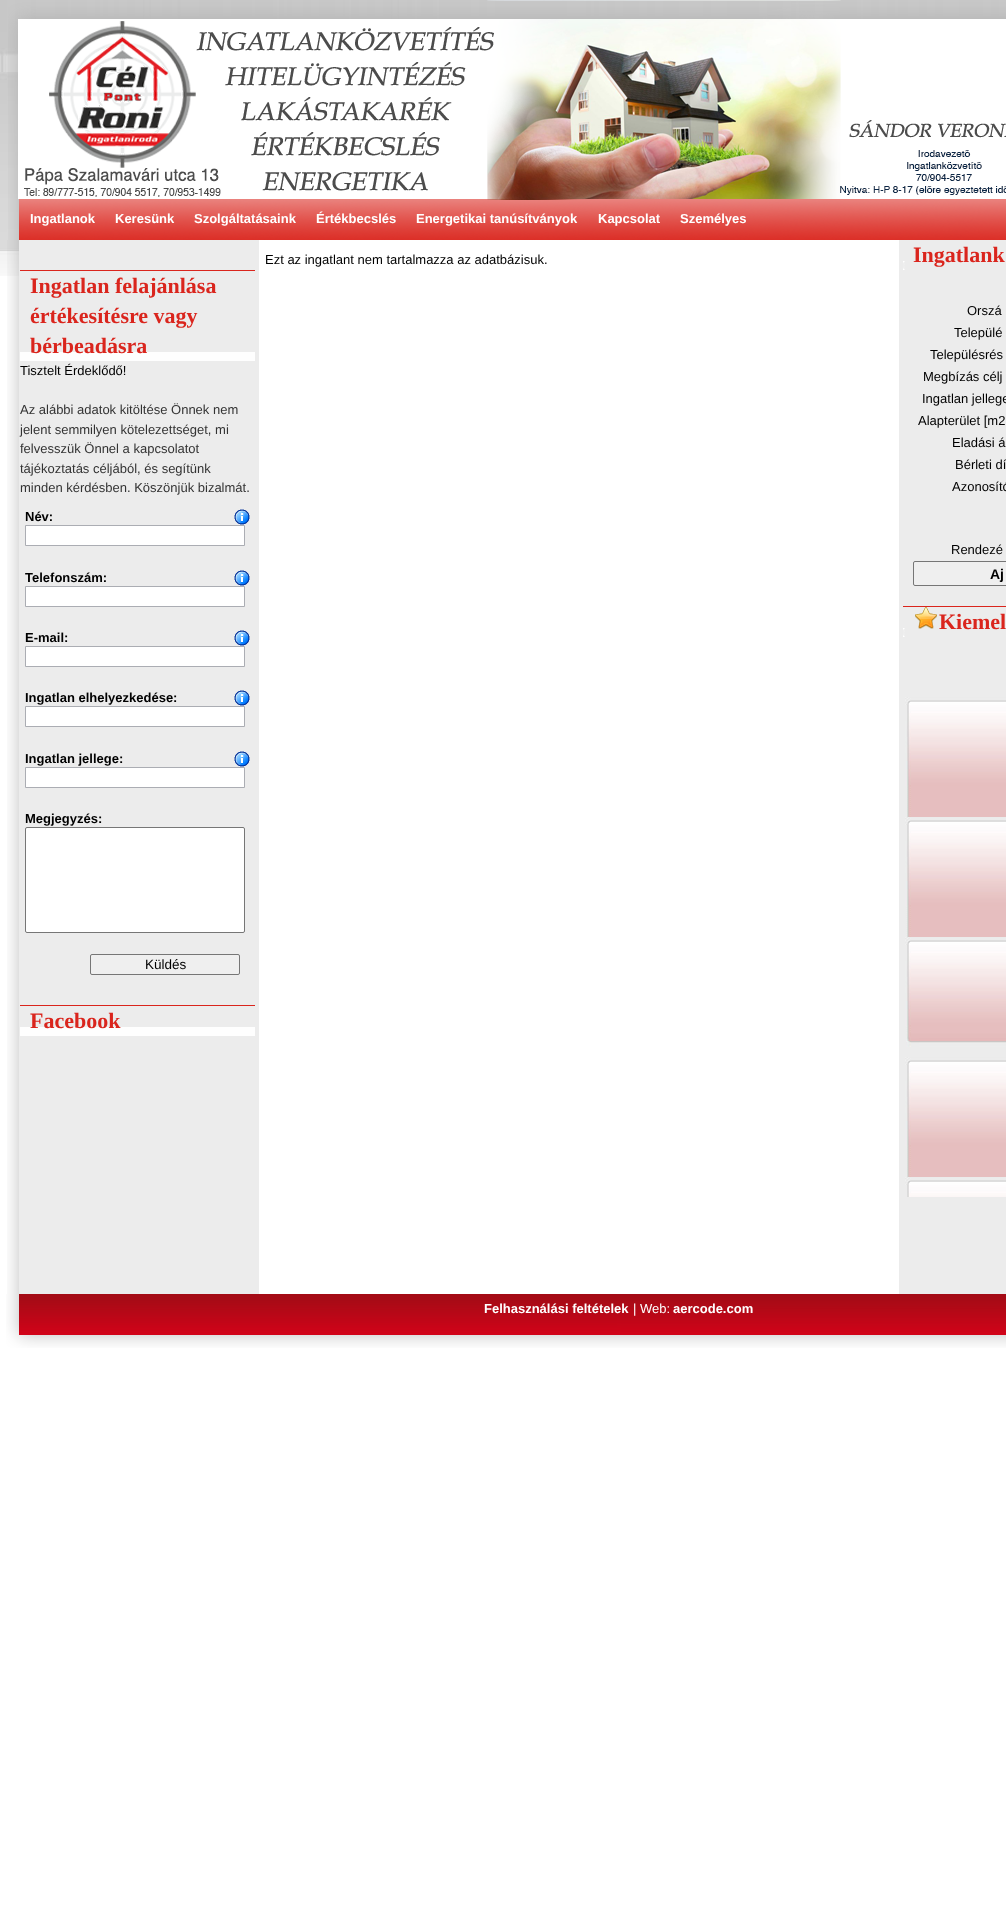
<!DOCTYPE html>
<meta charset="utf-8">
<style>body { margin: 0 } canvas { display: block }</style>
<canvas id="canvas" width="1006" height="1921"></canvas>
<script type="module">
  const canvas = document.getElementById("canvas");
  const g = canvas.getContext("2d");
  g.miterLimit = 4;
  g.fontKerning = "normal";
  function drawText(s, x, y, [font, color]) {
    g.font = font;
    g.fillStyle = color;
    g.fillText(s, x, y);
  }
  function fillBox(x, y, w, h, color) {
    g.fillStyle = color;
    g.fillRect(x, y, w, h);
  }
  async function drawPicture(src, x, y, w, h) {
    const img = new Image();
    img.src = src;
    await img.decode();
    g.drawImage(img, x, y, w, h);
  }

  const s1 = ["bold 13px Liberation Sans", "#FFFFFF"];
  const s2 = ["13px Liberation Sans", "#000000"];
  const s3 = ["bold 22px Liberation Serif", "#DA251D"];
  const s4 = ["bold 14px Liberation Sans", "#000000"];
  const s5 = ["13px Liberation Sans", "#333333"];
  const s6 = ["bold 13px Liberation Sans", "#000000"];
  const s7 = ["13.5px Liberation Sans", "#000000"];
  const s8 = ["13px Liberation Sans", "#FFFFFF"];

  fillBox(0, 0, 1006, 1921, "#FFFFFF");
  await drawPicture("pic1.png", 0, 0, 1006, 276);
  await drawPicture("pic2.png", 8, 0, 998, 240);
  drawText("Ingatlanok", 30, 223, s1);
  drawText("Keresünk", 115, 223, s1);
  drawText("Szolgáltatásaink", 194, 223, s1);
  drawText("Értékbecslés", 316, 223, s1);
  drawText("Energetikai tanúsítványok", 416, 223, s1);
  drawText("Kapcsolat", 598, 223, s1);
  drawText("Személyes", 680, 223, s1);
  await drawPicture("pic3.png", 7, 240, 999, 1054);
  drawText("Ezt az ingatlant nem tartalmazza az adatbázisuk.", 265, 264, s2);
  await drawPicture("pic4.png", 903, 261, 2, 9);
  drawText("Ingatlank", 913, 262, s3);
  drawText("Orszá", 967, 315, s2);
  drawText("Települé", 954, 337, s2);
  drawText("Településrés", 930, 359, s2);
  drawText("Megbízás célj", 923, 381, s2);
  drawText("Ingatlan jellege", 922, 403, s2);
  drawText("Alapterület [m2", 918, 425, s2);
  drawText("Eladási á", 952, 447, s2);
  drawText("Bérleti dí", 955, 469, s2);
  drawText("Azonosító", 952, 491, s2);
  drawText("Rendezé", 951, 554, s2);
  g.fillStyle = "#EFEFEF";
  g.beginPath();
  g.roundRect(913.5, 561.5, 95, 24, 1.5);
  g.fill();
  g.strokeStyle = "#767676";
  g.stroke();
  drawText("Aj", 990, 579, s4);
  fillBox(903, 606, 103, 1, "#DA251D");
  await drawPicture("pic4.png", 903, 628, 2, 9);
  await drawPicture("pic5.png", 915, 607, 22, 22);
  drawText("Kiemel", 939, 629, s3);
  await drawPicture("pic6.png", 907, 786, 99, 31);
  await drawPicture("pic7.png", 905, 697, 101, 89);
  await drawPicture("pic8.png", 906, 906, 100, 31);
  await drawPicture("pic7.png", 905, 817, 101, 89);
  await drawPicture("pic9.png", 906, 1026, 100, 7);
  await drawPicture("pic7.png", 905, 937, 101, 89);
  await drawPicture("pic10.png", 906, 1033, 100, 14);
  await drawPicture("pic6.png", 907, 1146, 99, 31);
  await drawPicture("pic7.png", 905, 1057, 101, 89);
  await drawPicture("pic11.png", 905, 1177, 101, 20);
  fillBox(20, 270, 235, 1, "#DA251D");
  fillBox(20, 352, 235, 9, "#FEFEFE");
  drawText("Ingatlan felajánlása", 30, 293, s3);
  drawText("értékesítésre vagy", 30, 323, s3);
  drawText("bérbeadásra", 30, 353, s3);
  drawText("Tisztelt Érdeklődő!", 20, 375, s2);
  drawText("Az alábbi adatok kitöltése Önnek nem", 20, 414, s5);
  drawText("jelent semmilyen kötelezettséget, mi", 20, 434, s5);
  drawText("felvesszük Önnel a kapcsolatot", 20, 453, s5);
  drawText("tájékoztatás céljából, és segítünk", 20, 473, s5);
  drawText("minden kérdésben. Köszönjük bizalmát.", 20, 492, s5);
  drawText("Név:", 25, 521, s6);
  await drawPicture("pic12.png", 234, 509, 16, 16);
  g.fillStyle = "#FFFFFF";
  g.beginPath();
  g.rect(25.5, 525.5, 219, 20);
  g.fill();
  g.strokeStyle = "#ABADB3";
  g.stroke();
  drawText("Telefonszám:", 25, 582, s6);
  await drawPicture("pic12.png", 234, 570, 16, 16);
  g.fillStyle = "#FFFFFF";
  g.beginPath();
  g.rect(25.5, 586.5, 219, 20);
  g.fill();
  g.stroke();
  drawText("E-mail:", 25, 642, s6);
  await drawPicture("pic12.png", 234, 630, 16, 16);
  g.fillStyle = "#FFFFFF";
  g.beginPath();
  g.rect(25.5, 646.5, 219, 20);
  g.fill();
  g.stroke();
  drawText("Ingatlan elhelyezkedése:", 25, 702, s6);
  await drawPicture("pic12.png", 234, 690, 16, 16);
  g.fillStyle = "#FFFFFF";
  g.beginPath();
  g.rect(25.5, 706.5, 219, 20);
  g.fill();
  g.stroke();
  drawText("Ingatlan jellege:", 25, 763, s6);
  await drawPicture("pic12.png", 234, 751, 16, 16);
  g.fillStyle = "#FFFFFF";
  g.beginPath();
  g.rect(25.5, 767.5, 219, 20);
  g.fill();
  g.stroke();
  drawText("Megjegyzés:", 25, 823, s6);
  g.fillStyle = "#FFFFFF";
  g.beginPath();
  g.roundRect(25.5, 827.5, 219, 105, 1.5);
  g.fill();
  g.strokeStyle = "#767676";
  g.stroke();
  g.fillStyle = "#EFEFEF";
  g.beginPath();
  g.roundRect(90.5, 954.5, 149, 20, 1.5);
  g.fill();
  g.stroke();
  drawText("Küldés", 145, 969, s7);
  fillBox(20, 1005, 235, 1, "#DA251D");
  fillBox(20, 1027, 235, 9, "#FEFEFE");
  drawText("Facebook", 30, 1028, s3);
  await drawPicture("pic13.png", 6, 1294, 1000, 54);
  drawText("Felhasználási feltételek", 484, 1313, s1);
  drawText("| Web:", 633, 1313, s8);
  drawText("aercode.com", 673, 1313, s1);
</script>
